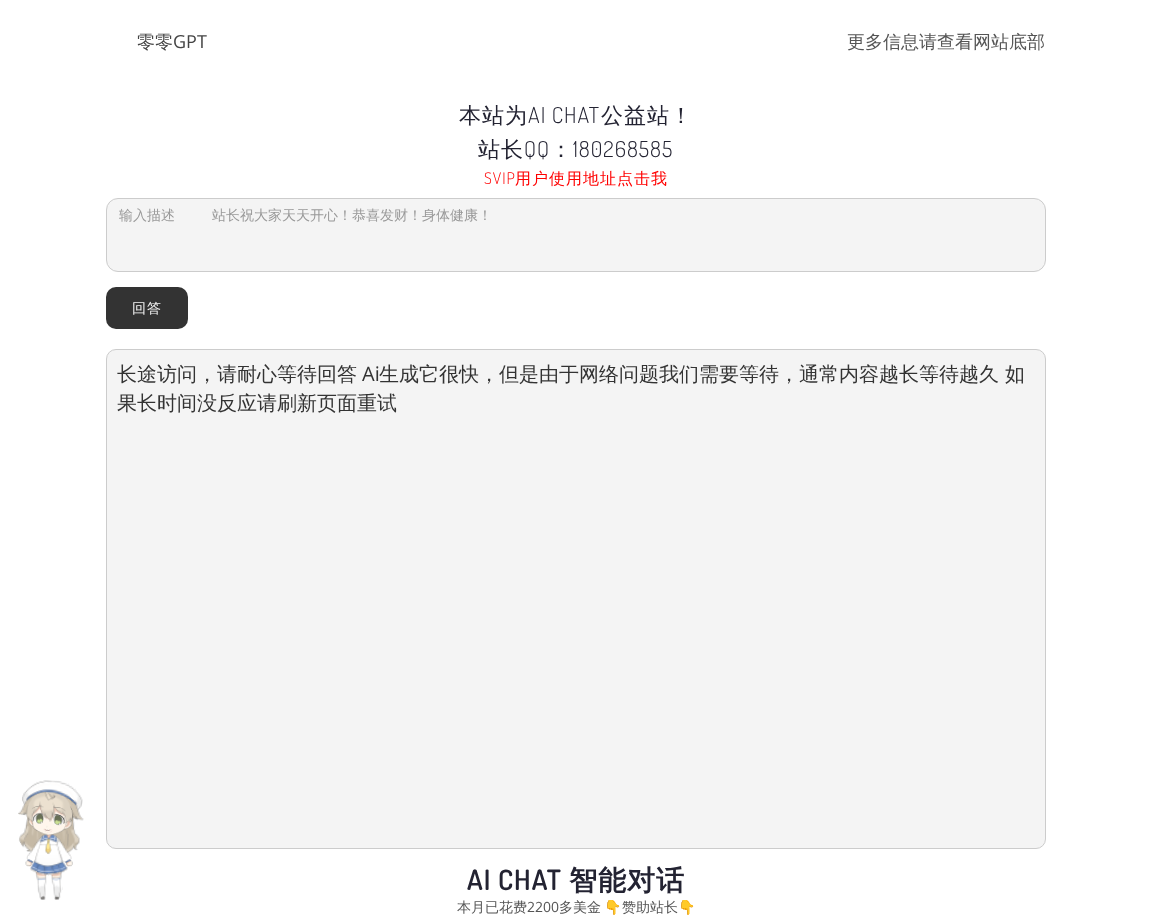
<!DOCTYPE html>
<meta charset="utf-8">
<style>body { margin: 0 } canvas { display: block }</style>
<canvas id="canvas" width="1152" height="921"></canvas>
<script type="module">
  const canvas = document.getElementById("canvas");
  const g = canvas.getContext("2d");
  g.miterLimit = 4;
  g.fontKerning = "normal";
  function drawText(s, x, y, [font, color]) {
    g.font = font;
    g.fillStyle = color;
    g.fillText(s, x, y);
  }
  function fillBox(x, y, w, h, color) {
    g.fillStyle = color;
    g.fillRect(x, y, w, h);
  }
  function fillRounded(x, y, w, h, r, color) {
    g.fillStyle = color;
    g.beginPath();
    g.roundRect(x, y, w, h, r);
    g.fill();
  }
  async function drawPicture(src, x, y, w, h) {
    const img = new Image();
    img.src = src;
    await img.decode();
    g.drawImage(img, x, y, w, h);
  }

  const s1 = ["500 18px WenQuanYi Zen Hei", "#444444"];
  const s2 = ["18px Open Sans", "#444444"];
  const s3 = ["500 18px WenQuanYi Zen Hei", "#555555"];
  const s4 = ["500 22px WenQuanYi Zen Hei", "#232332"];
  const s5 = ["300 22px Dosis", "#232332"];
  const s6 = ["300 16px Dosis", "#FF0000"];
  const s7 = ["500 16px WenQuanYi Zen Hei", "#FF0000"];
  const s8 = ["500 14px WenQuanYi Zen Hei", "#999999"];
  const s9 = ["500 14px WenQuanYi Zen Hei", "#F4F4F4"];
  const s10 = ["500 20px WenQuanYi Zen Hei", "#333333"];
  const s11 = ["20px Open Sans", "#333333"];
  const s12 = ["600 28px Dosis", "#232332"];
  const s13 = ["bold 28px WenQuanYi Zen Hei", "#232332"];
  const s14 = ["500 14px WenQuanYi Zen Hei", "#555555"];
  const s15 = ["14px Open Sans", "#555555"];
  const s16 = ["14px Noto Color Emoji", "#555555"];

  fillBox(0, 0, 1152, 921, "#FFFFFF");
  drawText("零零", 137, 48, s1);
  drawText("GPT", 173, 48, s2);
  drawText("更多信息请查看网站底部", 847, 48, s3);
  await drawPicture("pic1.png", 18, 780, 66, 120);
  g.letterSpacing = "1px";
  drawText("本站为", 459, 123, s4);
  drawText("AI CHAT", 528, 123, s5);
  drawText("公益站！", 601, 123, s4);
  drawText("站长", 478, 157, s4);
  drawText("QQ", 524, 157, s5);
  drawText("：", 550, 157, s4);
  drawText("180268585", 573, 157, s5);
  drawText("SVIP", 484, 184, s6);
  drawText("用户使用地址点击我", 515, 184, s7);
  g.fillStyle = "#F4F4F4";
  g.beginPath();
  g.roundRect(106.5, 198.5, 939, 73, 11.5);
  g.fill();
  g.strokeStyle = "#CCCCCC";
  g.stroke();
  g.letterSpacing = "0px";
  g.wordSpacing = "-0.5px";
  drawText("输入描述          站长祝大家天天开心！恭喜发财！身体健康！", 119, 220, s8);
  fillRounded(106, 287, 82, 42, 10, "#333333");
  g.letterSpacing = "1px";
  g.wordSpacing = "0px";
  drawText("回答", 132, 313, s9);
  g.beginPath();
  g.roundRect(106.5, 349.5, 939, 499, 9.5);
  g.fill();
  g.stroke();
  g.letterSpacing = "0px";
  drawText("长途访问，请耐心等待回答", 117, 381, s10);
  drawText("Ai", 362, 381, s11);
  drawText("生成它很快，但是由于网络问题我们需要等待，通常内容越长等待越久 如", 379, 381, s10);
  drawText("果长时间没反应请刷新页面重试", 117, 410, s10);
  g.letterSpacing = "1px";
  drawText("AI CHAT", 467, 890, s12);
  drawText("智能对话", 569, 890, s13);
  g.letterSpacing = "0px";
  drawText("本月已花费", 457, 912, s14);
  drawText("2200", 527, 912, s15);
  drawText("多美金", 559, 912, s14);
  drawText("👇", 604, 912, s16);
  drawText("赞助站长", 622, 912, s14);
  drawText("👇", 678, 912, s16);
</script>
